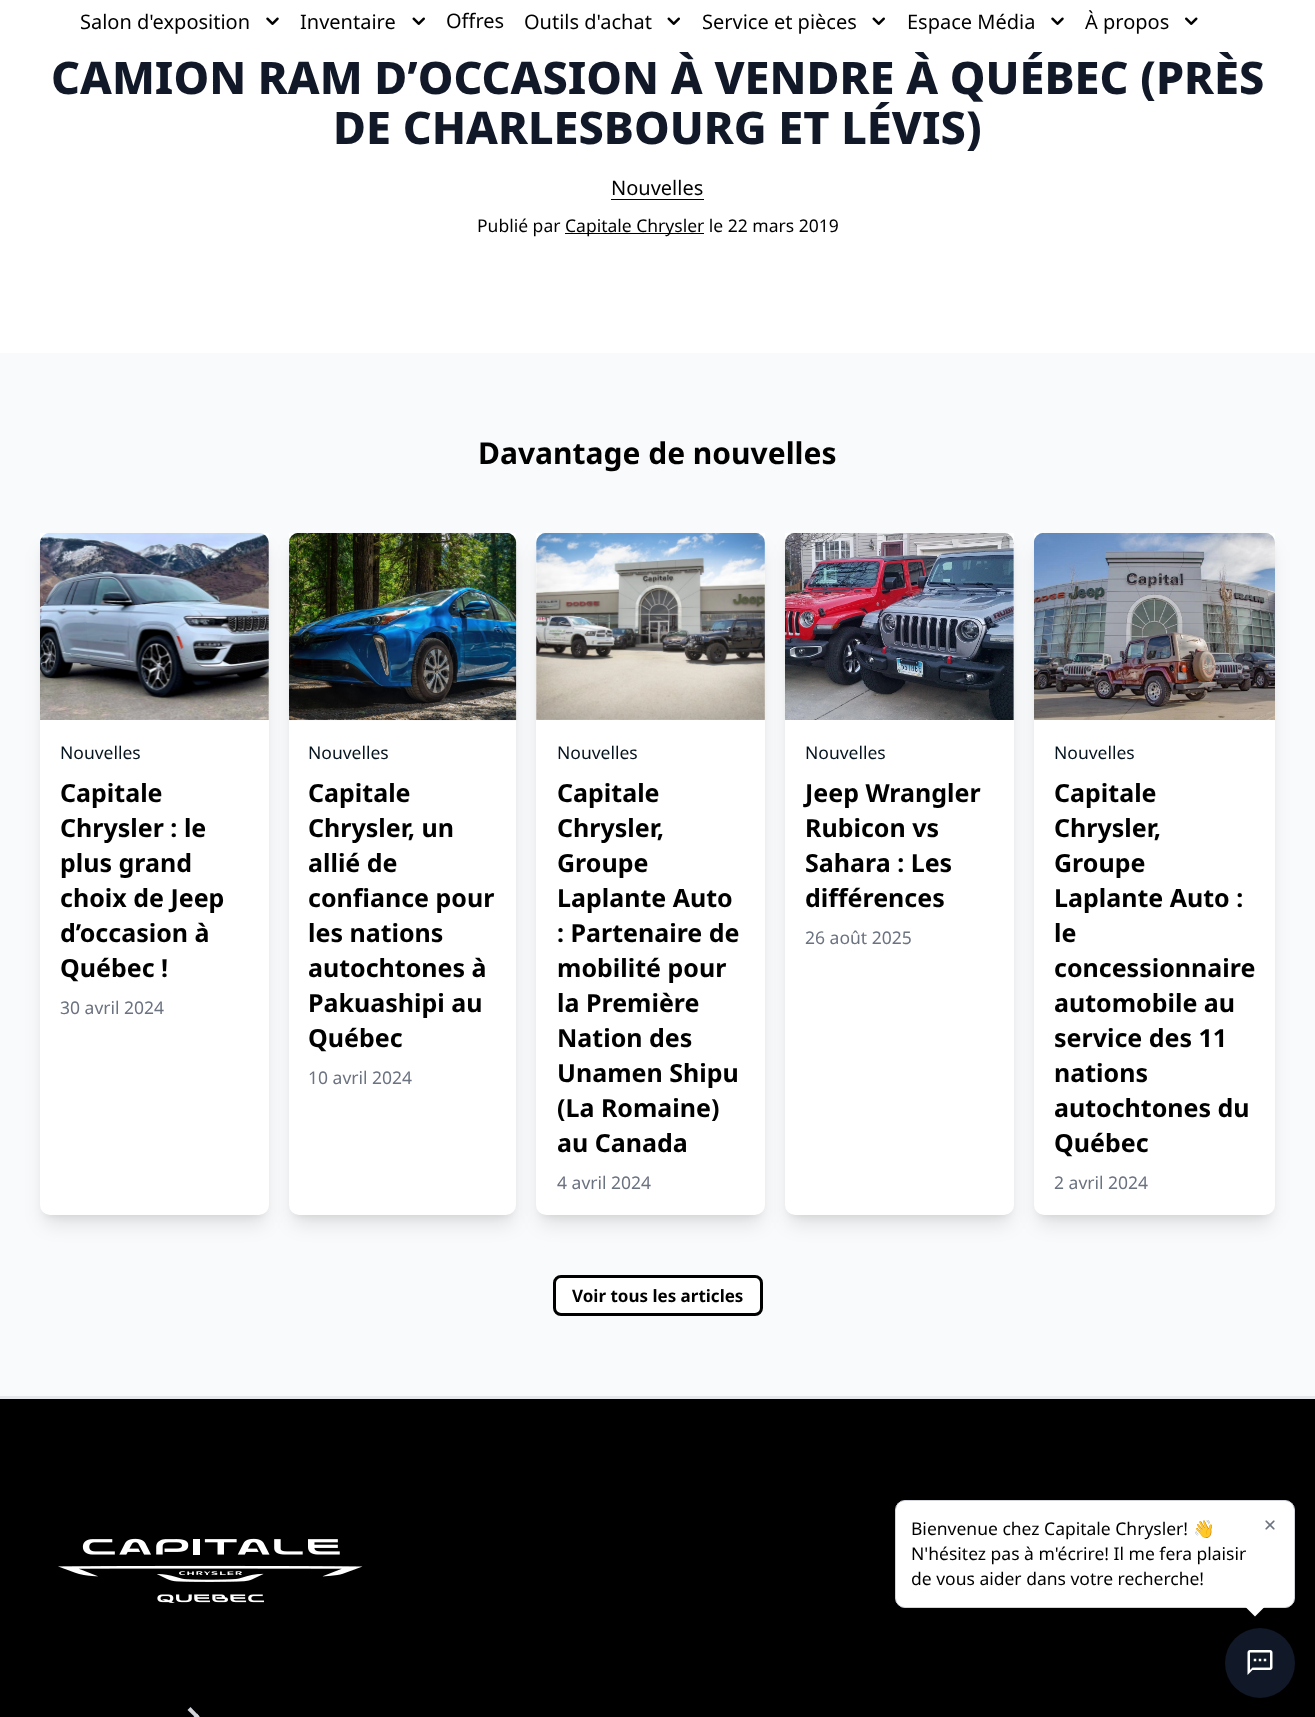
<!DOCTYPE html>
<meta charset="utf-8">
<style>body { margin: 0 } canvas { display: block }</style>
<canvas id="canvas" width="1315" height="1717"></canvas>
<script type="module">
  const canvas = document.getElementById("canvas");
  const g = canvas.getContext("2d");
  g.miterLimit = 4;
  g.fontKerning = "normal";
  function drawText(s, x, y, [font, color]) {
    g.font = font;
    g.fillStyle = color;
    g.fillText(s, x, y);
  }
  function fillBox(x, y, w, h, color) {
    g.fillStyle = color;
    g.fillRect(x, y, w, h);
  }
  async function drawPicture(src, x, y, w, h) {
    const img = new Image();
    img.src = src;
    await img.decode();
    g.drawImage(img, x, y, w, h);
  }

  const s1 = ["20px Noto Sans", "#000000"];
  const s2 = ["800 45px Noto Sans", "#111827"];
  const s3 = ["17.5px Noto Sans", "#000000"];
  const s4 = ["bold 30px Noto Sans", "#000000"];
  const s5 = ["17.5px Noto Sans", "#05141F"];
  const s6 = ["bold 25px Noto Sans", "#000000"];
  const s7 = ["17.5px Noto Sans", "#6B7280"];
  const s8 = ["bold 17px Noto Sans", "#000000"];
  const s9 = ["17.5px Noto Color Emoji", "#000000"];

  fillBox(0, 0, 1315, 1717, "#FFFFFF");
  drawText("Salon d'exposition", 80, 29, s1);
  await drawPicture("pic1.png", 266, 17, 13, 8);
  drawText("Inventaire", 300, 29, s1);
  await drawPicture("pic2.png", 412, 17, 13, 8);
  drawText("Offres", 446, 28, s1);
  drawText("Outils d'achat", 524, 29, s1);
  await drawPicture("pic2.png", 667, 17, 13, 8);
  drawText("Service et pièces", 702, 29, s1);
  await drawPicture("pic2.png", 872, 17, 13, 8);
  drawText("Espace Média", 907, 29, s1);
  await drawPicture("pic1.png", 1051, 17, 13, 8);
  drawText("À propos", 1085, 29, s1);
  await drawPicture("pic3.png", 1185, 17, 13, 8);
  drawText("CAMION RAM D’OCCASION À VENDRE À QUÉBEC (PRÈS", 51, 94, s2);
  drawText("DE CHARLESBOURG ET LÉVIS)", 333, 144, s2);
  drawText("Nouvelles", 611, 195, s1);
  fillBox(611, 199, 93, 1, "#000000");
  drawText("Publié par", 477, 232, s3);
  fillBox(565, 233, 139, 1, "#000000");
  drawText("Capitale Chrysler le 22 mars 2019", 565, 232, s3);
  fillBox(0, 353, 1315, 1043, "#F9FAFB");
  drawText("Davantage de nouvelles", 478, 464, s4);
  g.fillStyle = "rgba(0, 0, 0, 0.1)";
  g.filter = "blur(4px)";
  g.beginPath();
  g.roundRect(45, 543, 219, 672, 5);
  g.fill();
  g.filter = "none";
  g.filter = "blur(9.5px)";
  g.beginPath();
  g.roundRect(44, 549, 221, 675, 6);
  g.fill();
  g.filter = "none";
  g.fillStyle = "#FFFFFF";
  g.beginPath();
  g.roundRect(40, 533, 229, 682, [0, 0, 10, 10]);
  g.fill();
  g.fillStyle = "rgba(0, 0, 0, 0.1)";
  g.filter = "blur(9.5px)";
  g.beginPath();
  g.roundRect(293, 549, 220, 675, 6);
  g.fill();
  g.filter = "none";
  await drawPicture("pic4.png", 40, 533, 229, 187);
  drawText("Nouvelles", 60, 759, s5);
  drawText("Capitale", 60, 802, s6);
  drawText("Chrysler : le", 60, 837, s6);
  drawText("plus grand", 60, 872, s6);
  drawText("choix de Jeep", 60, 907, s6);
  drawText("d’occasion à", 60, 942, s6);
  drawText("Québec !", 60, 977, s6);
  drawText("30 avril 2024", 60, 1014, s7);
  g.fillStyle = "rgba(0, 0, 0, 0.1)";
  g.filter = "blur(4px)";
  g.beginPath();
  g.roundRect(294, 543, 217, 672, 5);
  g.fill();
  g.filter = "none";
  g.fillStyle = "#FFFFFF";
  g.beginPath();
  g.roundRect(289, 533, 227, 682, [0, 0, 10, 10]);
  g.fill();
  g.fillStyle = "rgba(0, 0, 0, 0.1)";
  g.filter = "blur(9.5px)";
  g.beginPath();
  g.roundRect(540, 549, 221, 675, 6);
  g.fill();
  g.filter = "none";
  await drawPicture("pic5.png", 289, 533, 228, 188);
  drawText("Nouvelles", 308, 759, s5);
  drawText("Capitale", 308, 802, s6);
  drawText("Chrysler, un", 308, 837, s6);
  drawText("allié de", 308, 872, s6);
  drawText("confiance pour", 308, 907, s6);
  drawText("les nations", 308, 942, s6);
  drawText("autochtones à", 308, 977, s6);
  drawText("Pakuashipi au", 308, 1012, s6);
  drawText("Québec", 308, 1047, s6);
  drawText("10 avril 2024", 308, 1084, s7);
  g.fillStyle = "rgba(0, 0, 0, 0.1)";
  g.filter = "blur(4px)";
  g.beginPath();
  g.roundRect(541, 543, 219, 672, 5);
  g.fill();
  g.filter = "none";
  g.fillStyle = "#FFFFFF";
  g.beginPath();
  g.roundRect(536, 533, 229, 682, [0, 0, 10, 10]);
  g.fill();
  g.fillStyle = "rgba(0, 0, 0, 0.1)";
  g.filter = "blur(9.5px)";
  g.beginPath();
  g.roundRect(789, 549, 221, 675, 6);
  g.fill();
  g.filter = "none";
  await drawPicture("pic6.png", 536, 533, 229, 187);
  drawText("Nouvelles", 557, 759, s5);
  drawText("Capitale", 557, 802, s6);
  drawText("Chrysler,", 557, 837, s6);
  drawText("Groupe", 557, 872, s6);
  drawText("Laplante Auto", 557, 907, s6);
  drawText(": Partenaire de", 557, 942, s6);
  drawText("mobilité pour", 557, 977, s6);
  drawText("la Première", 557, 1012, s6);
  drawText("Nation des", 557, 1047, s6);
  drawText("Unamen Shipu", 557, 1082, s6);
  drawText("(La Romaine)", 557, 1117, s6);
  drawText("au Canada", 557, 1152, s6);
  drawText("4 avril 2024", 557, 1189, s7);
  g.fillStyle = "rgba(0, 0, 0, 0.1)";
  g.filter = "blur(4px)";
  g.beginPath();
  g.roundRect(790, 543, 219, 672, 5);
  g.fill();
  g.filter = "none";
  g.fillStyle = "#FFFFFF";
  g.beginPath();
  g.roundRect(785, 533, 229, 682, [0, 0, 10, 10]);
  g.fill();
  g.fillStyle = "rgba(0, 0, 0, 0.1)";
  g.filter = "blur(9.5px)";
  g.beginPath();
  g.roundRect(1038, 549, 233, 675, 6);
  g.fill();
  g.filter = "none";
  await drawPicture("pic7.png", 785, 533, 229, 187);
  drawText("Nouvelles", 805, 759, s5);
  drawText("Jeep Wrangler", 805, 802, s6);
  drawText("Rubicon vs", 805, 837, s6);
  drawText("Sahara : Les", 805, 872, s6);
  drawText("différences", 805, 907, s6);
  drawText("26 août 2025", 805, 944, s7);
  g.fillStyle = "rgba(0, 0, 0, 0.1)";
  g.filter = "blur(4px)";
  g.beginPath();
  g.roundRect(1039, 543, 231, 672, 5);
  g.fill();
  g.filter = "none";
  g.fillStyle = "#FFFFFF";
  g.beginPath();
  g.roundRect(1034, 533, 241, 682, [0, 0, 10, 10]);
  g.fill();
  await drawPicture("pic8.png", 1034, 533, 241, 187);
  drawText("Nouvelles", 1054, 759, s5);
  drawText("Capitale", 1054, 802, s6);
  drawText("Chrysler,", 1054, 837, s6);
  drawText("Groupe", 1054, 872, s6);
  drawText("Laplante Auto :", 1054, 907, s6);
  drawText("le", 1054, 942, s6);
  drawText("concessionnaire", 1054, 977, s6);
  drawText("automobile au", 1054, 1012, s6);
  drawText("service des 11", 1054, 1047, s6);
  drawText("nations", 1054, 1082, s6);
  drawText("autochtones du", 1054, 1117, s6);
  drawText("Québec", 1054, 1152, s6);
  drawText("2 avril 2024", 1054, 1189, s7);
  g.fillStyle = "#FFFFFF";
  g.beginPath();
  g.roundRect(554.5, 1276.5, 207, 38, 6.5);
  g.fill();
  g.strokeStyle = "#000000";
  g.lineWidth = 3;
  g.stroke();
  drawText("Voir tous les articles", 572, 1302, s8);
  fillBox(0, 1399, 1315, 318, "#000000");
  fillBox(0, 1396, 1315, 3, "#E5E7EB");
  await drawPicture("pic9.png", 58, 1538, 305, 65);
  g.fillStyle = "#D1D5DB";
  g.beginPath();
  g.moveTo(190.5, 1707);
  g.lineTo(199.5, 1716.5);
  g.lineTo(197, 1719);
  g.lineTo(187.5, 1710);
  g.closePath();
  g.fill();
  g.beginPath();
  g.moveTo(197, 1713.5);
  g.lineTo(199.5, 1716.5);
  g.lineTo(190.5, 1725.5);
  g.lineTo(187.5, 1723);
  g.closePath();
  g.fill();
  g.fillStyle = "#FFFFFF";
  g.beginPath();
  g.roundRect(895.5, 1500.5, 399, 107, 9.5);
  g.fill();
  g.strokeStyle = "#D1D5DB";
  g.lineWidth = 1;
  g.stroke();
  drawText("Bienvenue chez Capitale Chrysler!", 911, 1535, s3);
  drawText("👋", 1193, 1535, s9);
  drawText("N'hésitez pas à m'écrire! Il me fera plaisir", 911, 1560, s3);
  drawText("de vous aider dans votre recherche!", 911, 1585, s3);
  await drawPicture("pic10.png", 1265, 1520, 10, 10);
  g.fillStyle = "#FFFFFF";
  g.beginPath();
  g.moveTo(1255, 1588.5);
  g.lineTo(1269, 1602.5);
  g.lineTo(1255, 1616.5);
  g.lineTo(1241, 1602.5);
  g.closePath();
  g.fill();
  g.fillStyle = "#111827";
  g.beginPath();
  g.arc(1260, 1663, 35, 0, Math.PI * 2);
  g.fill();
  await drawPicture("pic11.png", 1247, 1650, 26, 25);
</script>
